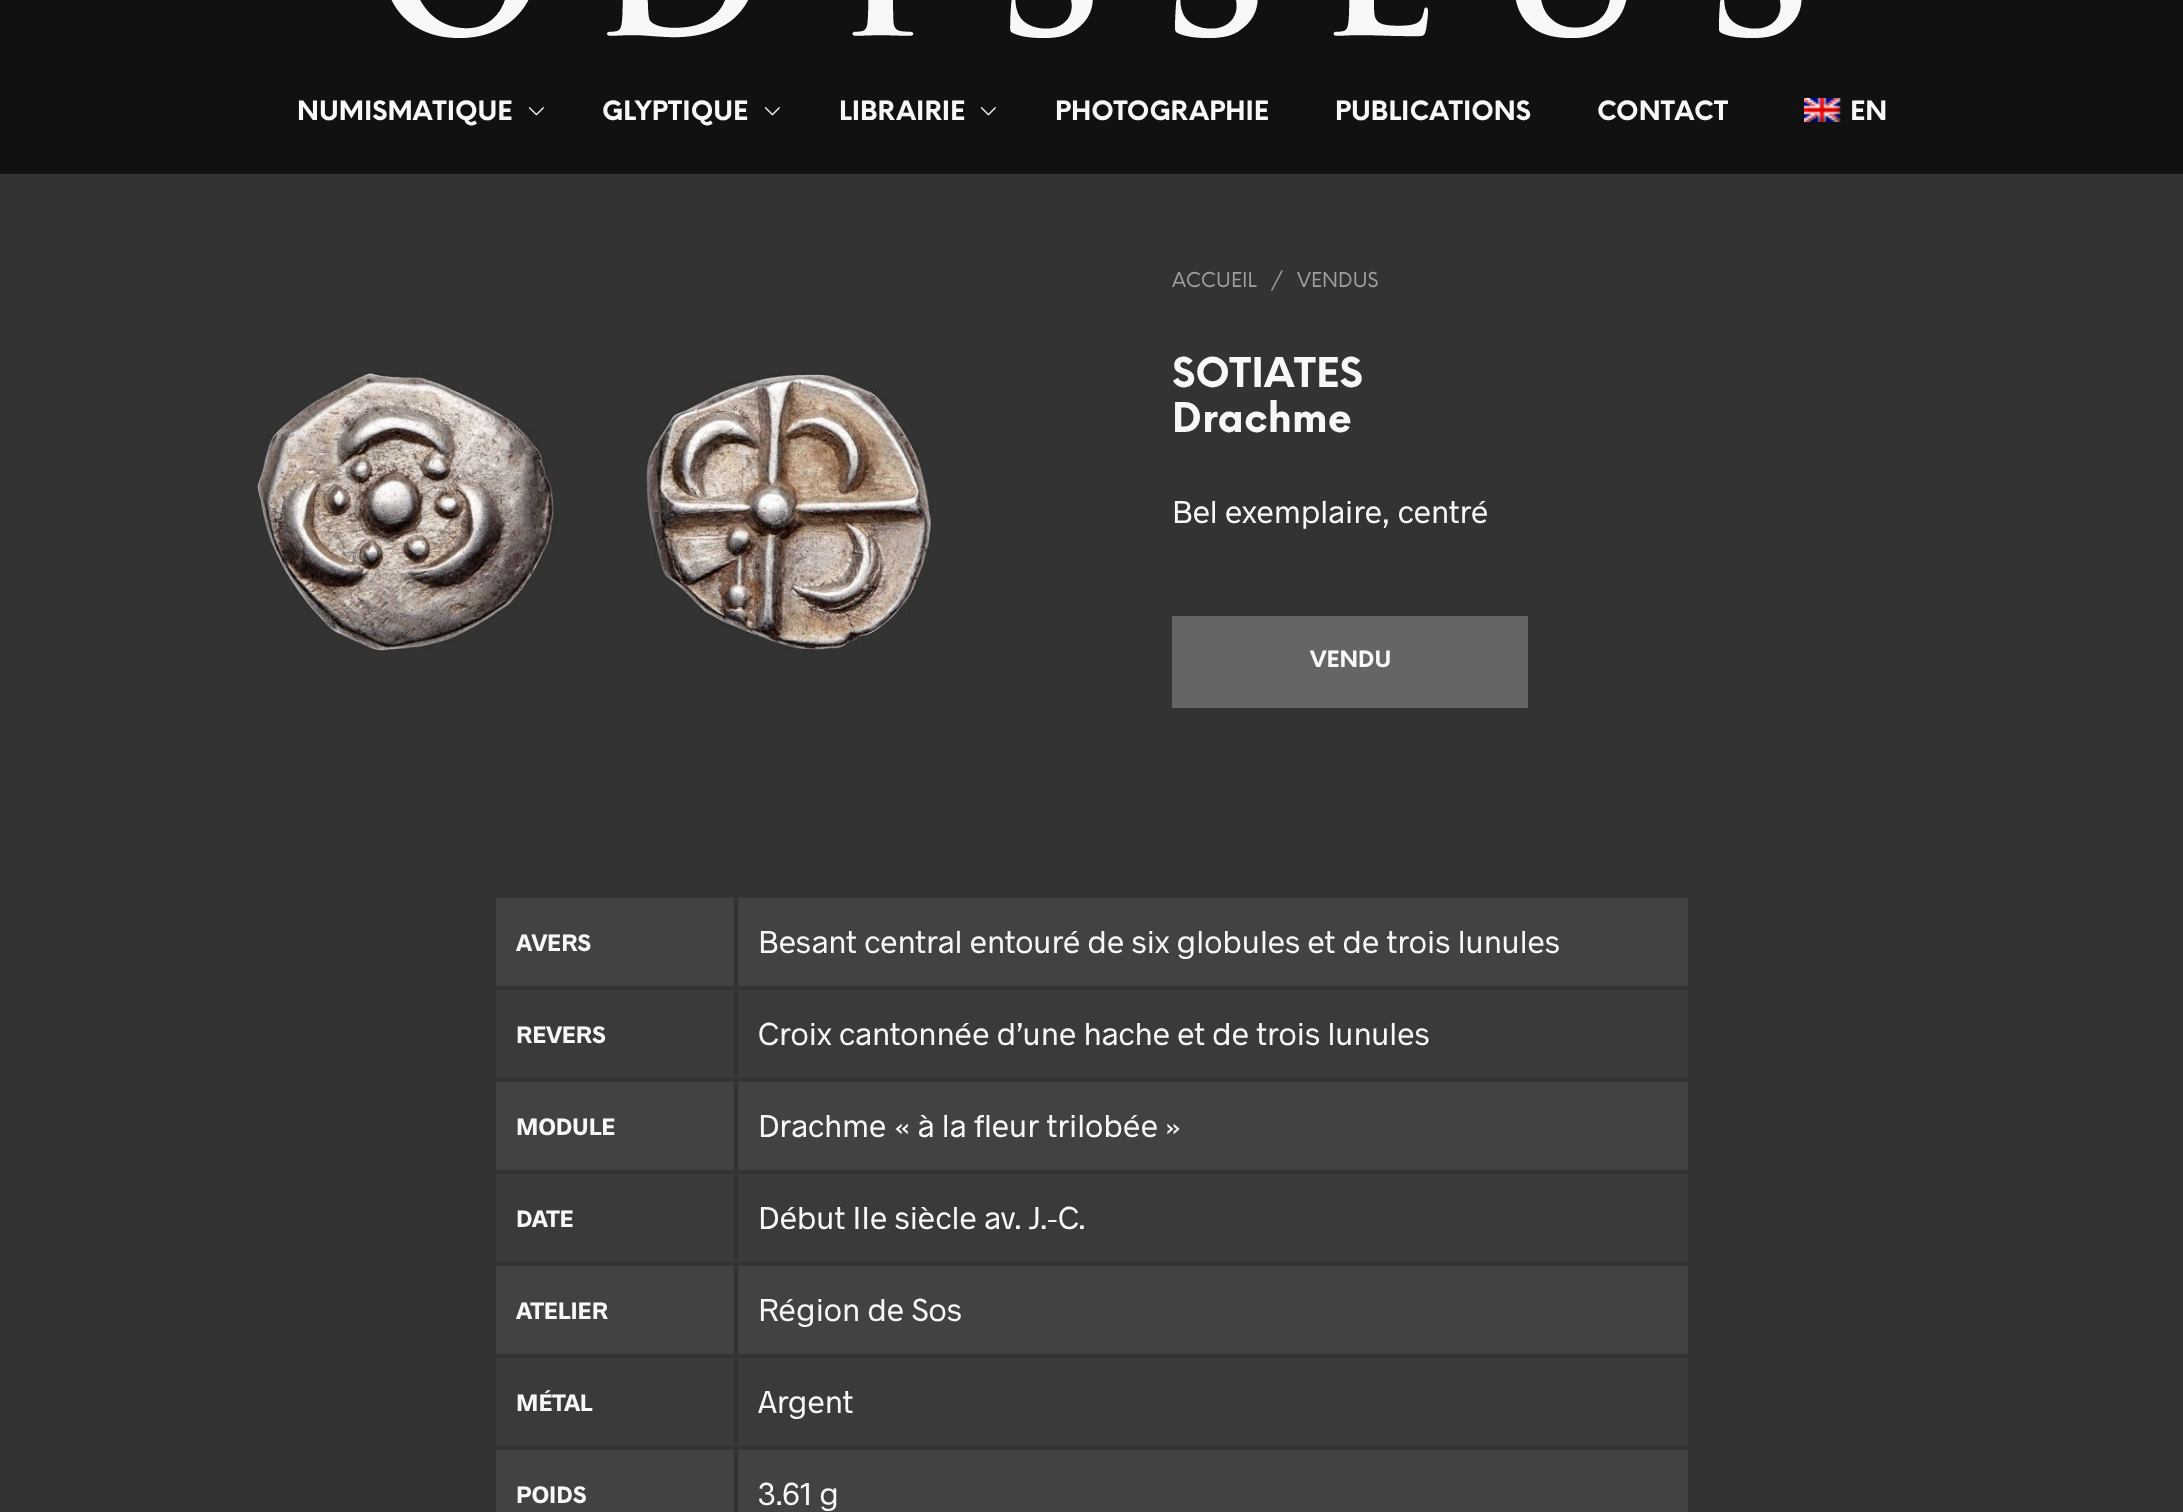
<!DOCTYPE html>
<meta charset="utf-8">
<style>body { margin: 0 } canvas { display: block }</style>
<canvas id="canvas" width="2183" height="1512"></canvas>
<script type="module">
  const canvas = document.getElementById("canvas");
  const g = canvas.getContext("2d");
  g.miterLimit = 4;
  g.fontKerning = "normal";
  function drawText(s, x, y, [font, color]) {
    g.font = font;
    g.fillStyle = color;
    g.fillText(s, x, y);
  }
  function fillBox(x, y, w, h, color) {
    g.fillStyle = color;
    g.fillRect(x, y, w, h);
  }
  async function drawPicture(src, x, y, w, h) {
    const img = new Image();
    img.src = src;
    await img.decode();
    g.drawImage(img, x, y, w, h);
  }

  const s1 = ["bold 26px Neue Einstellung", "#F7F7F7"];
  const s2 = ["20px Neue Einstellung", "#9F9F9F"];
  const s3 = ["bold 40px Neue Einstellung", "#F7F7F7"];
  const s4 = ["32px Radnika", "#F7F7F7"];
  const s5 = ["bold 22px Neue Einstellung", "#F7F7F7"];
  const s6 = ["bold 24px Radnika", "#F7F7F7"];

  fillBox(0, 0, 2183, 1512, "#333333");
  fillBox(0, 0, 2183, 174, "#111111");
  await drawPicture("pic1.png", 391, 0, 1411, 38);
  drawText("NUMISMATIQUE", 297, 120, s1);
  await drawPicture("pic2.png", 528, 107, 16, 9);
  drawText("GLYPTIQUE", 602, 120, s1);
  await drawPicture("pic2.png", 764, 107, 16, 9);
  drawText("LIBRAIRIE", 839, 120, s1);
  await drawPicture("pic2.png", 980, 107, 16, 9);
  drawText("PHOTOGRAPHIE", 1055, 120, s1);
  drawText("PUBLICATIONS", 1335, 120, s1);
  drawText("CONTACT", 1597, 120, s1);
  await drawPicture("pic3.png", 1804, 98, 37, 24);
  drawText("EN", 1850, 120, s1);
  await drawPicture("pic4.png", 256, 372, 679, 283);
  drawText("ACCUEIL", 1172, 287, s2);
  drawText("/", 1271, 287, s2);
  drawText("VENDUS", 1297, 287, s2);
  drawText("SOTIATES", 1172, 387, s3);
  drawText("Drachme", 1172, 432, s3);
  drawText("Bel exemplaire, centré", 1172, 523, s4);
  fillBox(1172, 616, 356, 92, "#656565");
  drawText("VENDU", 1310, 667, s5);
  fillBox(496, 898, 238, 88, "#424242");
  drawText("AVERS", 516, 951, s6);
  fillBox(738, 898, 950, 88, "#424242");
  drawText("Besant central entouré de six globules et de trois lunules", 758, 953, s4);
  fillBox(496, 990, 238, 88, "#3A3A3A");
  drawText("REVERS", 516, 1043, s6);
  fillBox(738, 990, 950, 88, "#3A3A3A");
  drawText("Croix cantonnée d’une hache et de trois lunules", 758, 1045, s4);
  fillBox(496, 1082, 238, 88, "#424242");
  drawText("MODULE", 516, 1135, s6);
  fillBox(738, 1082, 950, 88, "#424242");
  drawText("Drachme « à la fleur trilobée »", 758, 1137, s4);
  fillBox(496, 1174, 238, 88, "#3A3A3A");
  drawText("DATE", 516, 1227, s6);
  fillBox(738, 1174, 950, 88, "#3A3A3A");
  drawText("Début IIe siècle av. J.-C.", 758, 1229, s4);
  fillBox(496, 1266, 238, 88, "#424242");
  drawText("ATELIER", 516, 1319, s6);
  fillBox(738, 1266, 950, 88, "#424242");
  drawText("Région de Sos", 758, 1321, s4);
  fillBox(496, 1358, 238, 88, "#3A3A3A");
  drawText("MÉTAL", 516, 1411, s6);
  fillBox(738, 1358, 950, 88, "#3A3A3A");
  drawText("Argent", 758, 1413, s4);
  fillBox(496, 1450, 238, 62, "#424242");
  drawText("POIDS", 516, 1503, s6);
  fillBox(738, 1450, 950, 62, "#424242");
  drawText("3.61 g", 758, 1505, s4);
</script>
